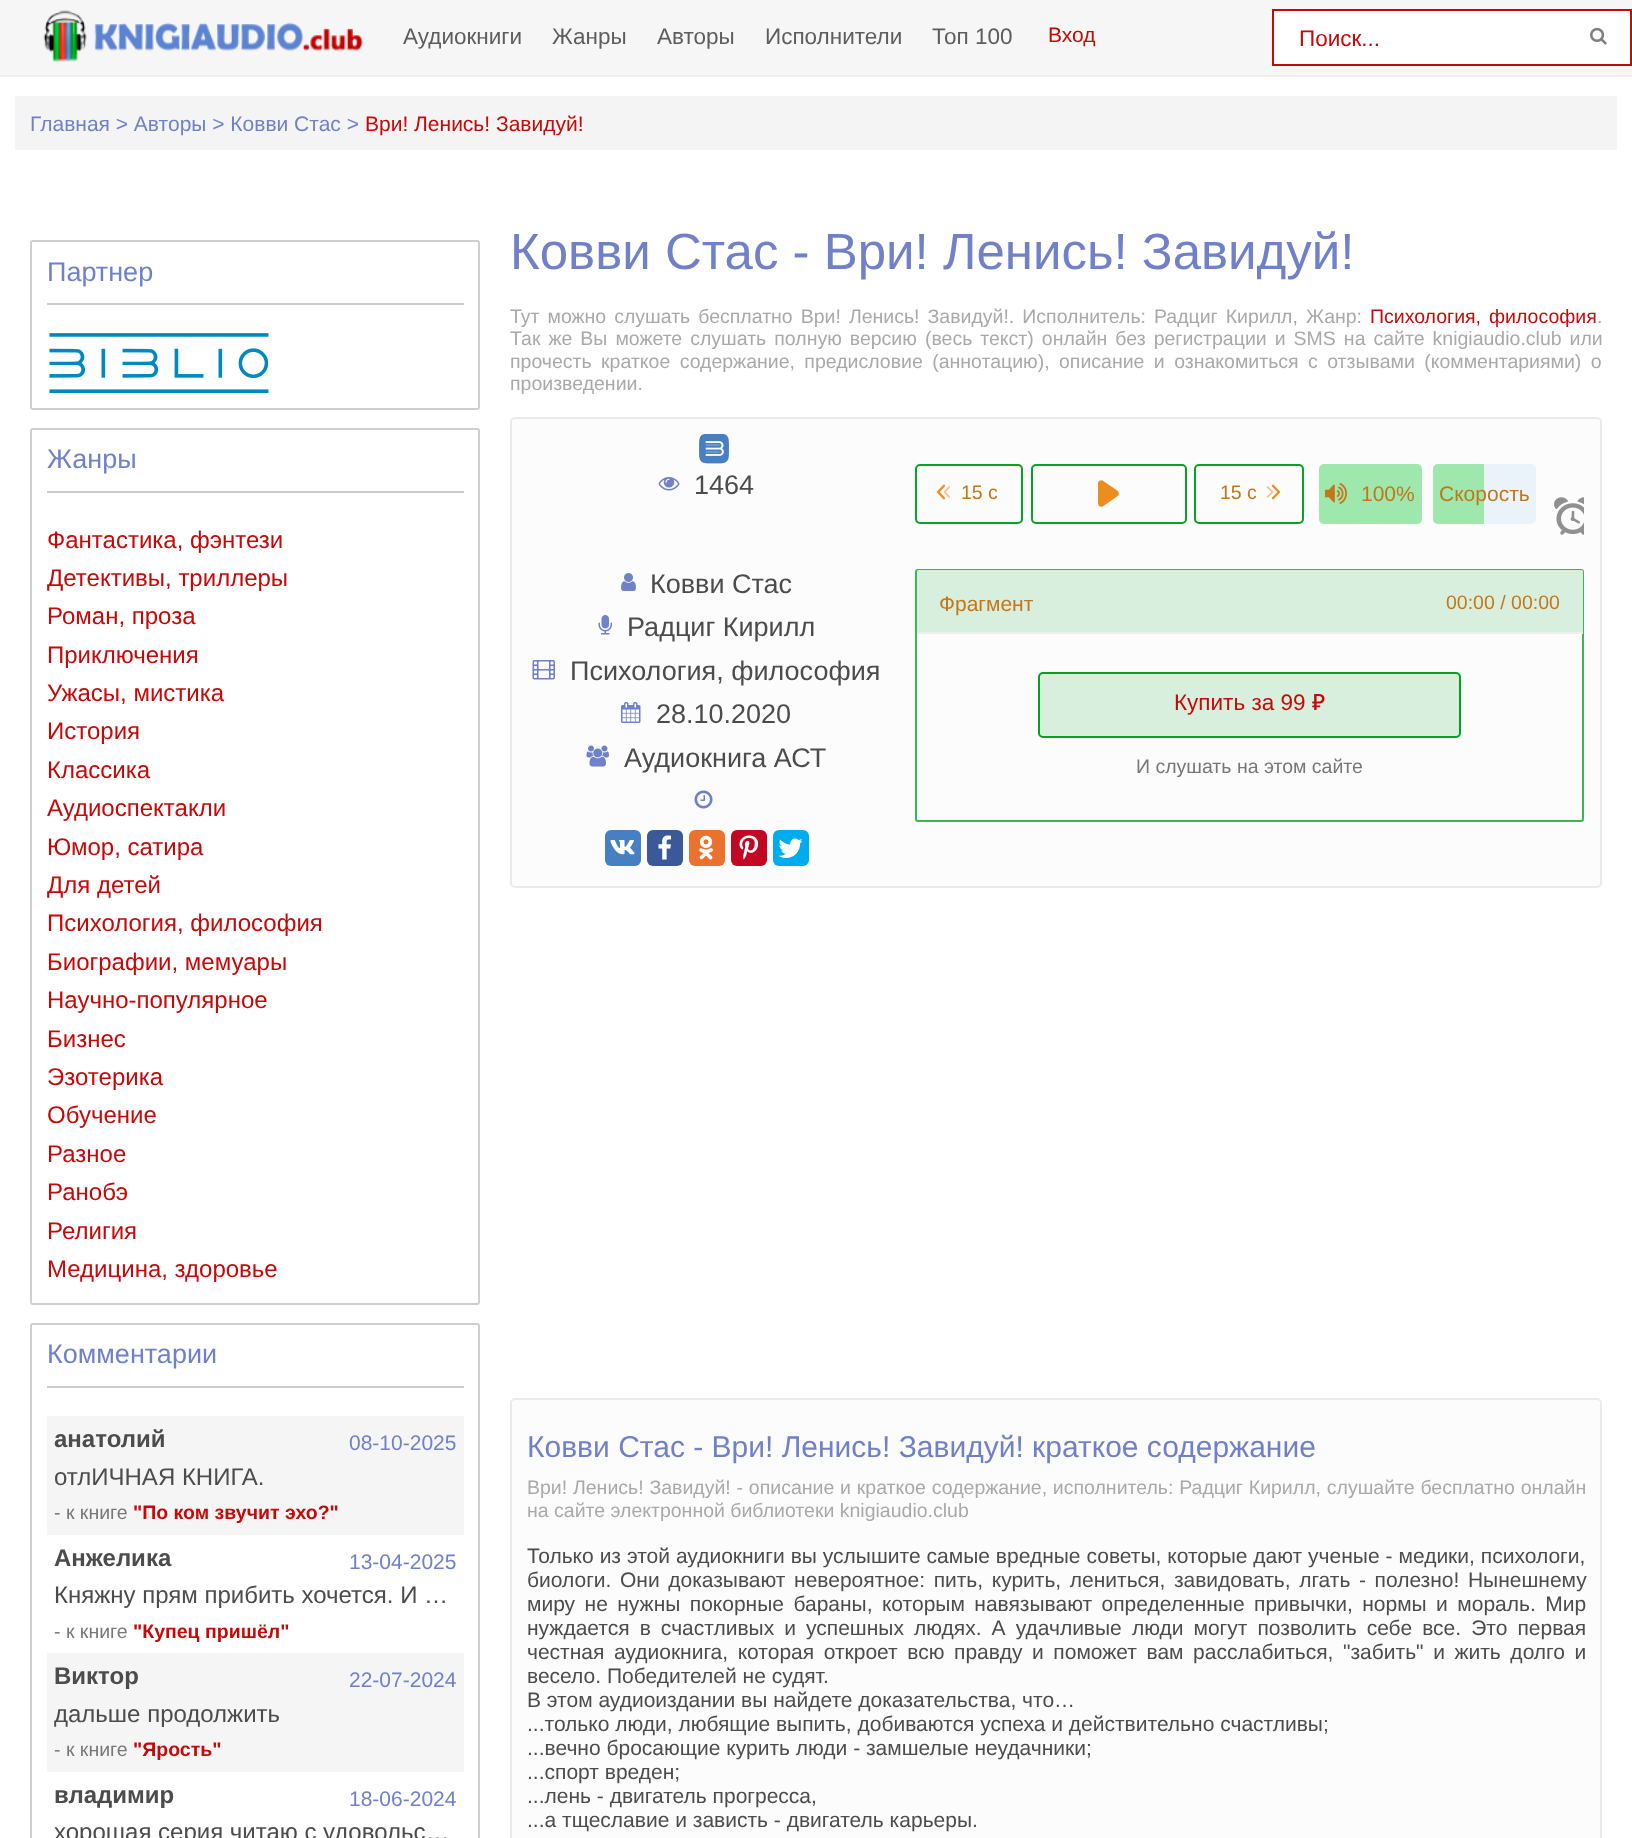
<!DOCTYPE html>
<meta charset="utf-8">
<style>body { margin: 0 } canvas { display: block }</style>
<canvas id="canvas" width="1632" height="1838"></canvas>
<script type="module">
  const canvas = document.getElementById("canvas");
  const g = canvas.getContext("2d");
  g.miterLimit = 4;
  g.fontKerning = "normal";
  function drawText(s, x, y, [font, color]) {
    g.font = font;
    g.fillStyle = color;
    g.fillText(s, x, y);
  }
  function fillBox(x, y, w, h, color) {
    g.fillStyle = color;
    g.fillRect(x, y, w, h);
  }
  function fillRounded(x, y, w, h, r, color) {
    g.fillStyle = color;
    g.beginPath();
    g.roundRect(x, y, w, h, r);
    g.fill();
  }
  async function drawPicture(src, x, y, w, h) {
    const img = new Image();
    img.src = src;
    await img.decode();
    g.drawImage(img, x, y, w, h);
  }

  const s1 = ["22.5px Liberation Sans", "#5D5D5D"];
  const s2 = ["21px Liberation Sans", "#C50909"];
  const s3 = ["22.5px Liberation Sans", "#C50909"];
  const s4 = ["21px Liberation Sans", "#7081CA"];
  const s5 = ["27px Liberation Sans", "#7081CA"];
  const s6 = ["24px Liberation Sans", "#C50909"];
  const s7 = ["bold 24px Liberation Sans", "#4C4C4C"];
  const s8 = ["24px Liberation Sans", "#4C4C4C"];
  const s9 = ["19.5px Liberation Sans", "#777777"];
  const s10 = ["bold 19.5px Liberation Sans", "#C50909"];
  const s11 = ["51px Liberation Sans", "#7081CA"];
  const s12 = ["19.5px Liberation Sans", "#A9A9A9"];
  const s13 = ["19.5px Liberation Sans", "#C50909"];
  const s14 = ["27px Liberation Sans", "#4C4C4C"];
  const s15 = ["19.5px Liberation Sans", "#C57618"];
  const s16 = ["21px Liberation Sans", "#C57618"];
  const s17 = ["500 22.5px Noto Sans", "#C50909"];
  const s18 = ["30px Liberation Sans", "#7081CA"];
  const s19 = ["21px Liberation Sans", "#4C4C4C"];

  fillBox(0, 0, 1632, 1838, "#FFFFFF");
  fillBox(0, 0, 1632, 75, "#F6F6F6");
  fillBox(0, 75, 1632, 2, "#EFEFEF");
  await drawPicture("pic1.png", 43, 10, 320, 52);
  drawText("Аудиокниги", 403, 44, s1);
  drawText("Жанры", 552, 44, s1);
  drawText("Авторы", 657, 44, s1);
  drawText("Исполнители", 765, 44, s1);
  drawText("Топ 100", 932, 44, s1);
  drawText("Вход", 1048, 42, s2);
  g.fillStyle = "#FFFFFF";
  g.beginPath();
  g.rect(1273, 10, 358, 55);
  g.fill();
  g.strokeStyle = "#C50909";
  g.lineWidth = 2;
  g.stroke();
  drawText("Поиск...", 1299, 46, s3);
  await drawPicture("pic2.png", 1590, 27, 17, 18);
  fillBox(15, 96, 1602, 54, "#F4F4F4");
  drawText("Главная > Авторы > Ковви Стас >", 30, 131, s4);
  drawText("Ври! Ленись! Завидуй!", 365, 131, s2);
  g.beginPath();
  g.roundRect(31, 241, 448, 168, 2);
  g.strokeStyle = "#D0CFCF";
  g.stroke();
  drawText("Партнер", 47, 281, s5);
  fillBox(47, 303, 417, 2, "#CCCCCC");
  await drawPicture("pic3.png", 49, 333, 220, 60);
  g.beginPath();
  g.roundRect(31, 429, 448, 875, 2);
  g.stroke();
  drawText("Жанры", 47, 468, s5);
  fillBox(47, 491, 417, 2, "#CCCCCC");
  drawText("Фантастика, фэнтези", 47, 548, s6);
  drawText("Детективы, триллеры", 47, 586, s6);
  drawText("Роман, проза", 47, 624, s6);
  drawText("Приключения", 47, 663, s6);
  drawText("Ужасы, мистика", 47, 701, s6);
  drawText("История", 47, 739, s6);
  drawText("Классика", 47, 778, s6);
  drawText("Аудиоспектакли", 47, 816, s6);
  drawText("Юмор, сатира", 47, 855, s6);
  drawText("Для детей", 47, 893, s6);
  drawText("Психология, философия", 47, 931, s6);
  drawText("Биографии, мемуары", 47, 970, s6);
  drawText("Научно-популярное", 47, 1008, s6);
  drawText("Бизнес", 47, 1047, s6);
  drawText("Эзотерика", 47, 1085, s6);
  drawText("Обучение", 47, 1123, s6);
  drawText("Разное", 47, 1162, s6);
  drawText("Ранобэ", 47, 1200, s6);
  drawText("Религия", 47, 1239, s6);
  drawText("Медицина, здоровье", 47, 1277, s6);
  g.beginPath();
  g.roundRect(31, 1324, 448, 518, 2);
  g.stroke();
  drawText("Комментарии", 47, 1363, s5);
  fillBox(47, 1386, 417, 2, "#CCCCCC");
  fillBox(47, 1416, 417, 119, "#F5F5F5");
  drawText("анатолий", 54, 1447, s7);
  drawText("08-10-2025", 349, 1450, s4);
  drawText("отлИЧНАЯ КНИГА.", 54, 1485, s8);
  drawText("- к книге", 54, 1519, s9);
  drawText("\"По ком звучит эхо?\"", 133, 1519, s10);
  drawText("Анжелика", 54, 1566, s7);
  drawText("13-04-2025", 349, 1569, s4);
  drawText("Княжну прям прибить хочется. И …", 54, 1603, s8);
  drawText("- к книге", 54, 1638, s9);
  drawText("\"Купец пришёл\"", 133, 1638, s10);
  fillBox(47, 1653, 417, 119, "#F5F5F5");
  drawText("Виктор", 54, 1684, s7);
  drawText("22-07-2024", 349, 1687, s4);
  drawText("дальше продолжить", 54, 1722, s8);
  drawText("- к книге", 54, 1756, s9);
  drawText("\"Ярость\"", 133, 1756, s10);
  drawText("владимир", 54, 1803, s7);
  drawText("18-06-2024", 349, 1806, s4);
  drawText("хорошая серия читаю с удовольс…", 54, 1840, s8);
  drawText("Ковви Стас - Ври! Ленись! Завидуй!", 510, 269, s11);
  g.wordSpacing = "2.6px";
  drawText("Тут можно слушать бесплатно Ври! Ленись! Завидуй!. Исполнитель: Радциг Кирилл, Жанр:", 510, 323, s12);
  drawText("Психология, философия", 1370, 323, s13);
  g.wordSpacing = "0px";
  drawText(".", 1597, 323, s12);
  g.wordSpacing = "2.6px";
  drawText("Так же Вы можете слушать полную версию (весь текст) онлайн без регистрации и SMS на сайте knigiaudio.club или", 510, 345, s12);
  g.wordSpacing = "4px";
  drawText("прочесть краткое содержание, предисловие (аннотацию), описание и ознакомиться с отзывами (комментариями) о", 510, 368, s12);
  g.wordSpacing = "0px";
  drawText("произведении.", 510, 390, s12);
  g.fillStyle = "#FCFCFC";
  g.beginPath();
  g.roundRect(511, 418, 1090, 469, 4);
  g.fill();
  g.strokeStyle = "#EAEAEA";
  g.stroke();
  await drawPicture("pic4.png", 699, 434, 30, 30);
  await drawPicture("pic5.png", 658, 477, 22, 14);
  drawText("1464", 694, 494, s14);
  await drawPicture("pic6.png", 621, 573, 15, 18);
  drawText("Ковви Стас", 650, 593, s14);
  await drawPicture("pic7.png", 598, 615, 14, 20);
  drawText("Радциг Кирилл", 627, 636, s14);
  await drawPicture("pic8.png", 532, 660, 23, 20);
  drawText("Психология, философия", 570, 680, s14);
  await drawPicture("pic9.png", 621, 702, 20, 21);
  drawText("28.10.2020", 656, 723, s14);
  await drawPicture("pic10.png", 586, 745, 23, 22);
  drawText("Аудиокнига АСТ", 624, 767, s14);
  await drawPicture("pic11.png", 694, 790, 19, 19);
  fillRounded(605, 830, 36, 36, 6, "#4680C2");
  await drawPicture("pic12.png", 610, 840, 25, 15);
  fillRounded(647, 830, 36, 36, 6, "#3B5998");
  await drawPicture("pic13.png", 658, 835, 14, 25);
  fillRounded(689, 830, 36, 36, 6, "#EB722E");
  await drawPicture("pic14.png", 699, 835, 14, 25);
  fillRounded(731, 830, 36, 36, 6, "#C20724");
  await drawPicture("pic15.png", 739, 835, 20, 25);
  fillRounded(773, 830, 36, 36, 6, "#00ACED");
  await drawPicture("pic16.png", 778, 838, 25, 20);
  g.beginPath();
  g.roundRect(916, 465, 106, 58, 4);
  g.strokeStyle = "#07A326";
  g.stroke();
  await drawPicture("pic17.png", 936, 484, 15, 16);
  drawText("15 c", 961, 499, s15);
  g.beginPath();
  g.roundRect(1032, 465, 154, 58, 4);
  g.stroke();
  await drawPicture("pic18.png", 1098, 480, 21, 27);
  g.beginPath();
  g.roundRect(1195, 465, 108, 58, 4);
  g.stroke();
  drawText("15 c", 1220, 499, s15);
  await drawPicture("pic19.png", 1266, 484, 15, 16);
  fillRounded(1319, 464, 103, 60, 5, "#9EE8AD");
  await drawPicture("pic20.png", 1325, 483, 22, 21);
  drawText("100%", 1361, 501, s16);
  fillRounded(1433, 464, 103, 60, 5, "#E9F3F9");
  g.fillStyle = "#9EE8AD";
  g.beginPath();
  g.roundRect(1433, 464, 51, 60, [5, 0, 0, 5]);
  g.fill();
  drawText("Скорость", 1439, 501, s16);
  await drawPicture("pic21.png", 1554, 497, 30, 38);
  g.beginPath();
  g.roundRect(916, 570, 667, 251, 2);
  g.strokeStyle = "#3BB654";
  g.stroke();
  g.fillStyle = "#D7EFDC";
  g.beginPath();
  g.roundRect(917, 570, 666, 63, [1.5, 1.5, 0, 0]);
  g.fill();
  fillBox(917, 632, 666, 2, "#EEEEEE");
  drawText("Фрагмент", 939, 611, s16);
  drawText("00:00 / 00:00", 1446, 609, s15);
  g.fillStyle = "#D7EFDC";
  g.beginPath();
  g.roundRect(1039, 673, 421, 64, 4);
  g.fill();
  g.strokeStyle = "#02A222";
  g.stroke();
  drawText("Купить за 99", 1174, 710, s3);
  drawText("₽", 1312, 710, s17);
  drawText("И слушать на этом сайте", 1136, 773, s9);
  g.fillStyle = "#FCFCFC";
  g.beginPath();
  g.roundRect(511, 1399, 1090, 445, 4);
  g.fill();
  g.strokeStyle = "#EAEAEA";
  g.stroke();
  drawText("Ковви Стас - Ври! Ленись! Завидуй! краткое содержание", 527, 1457, s18);
  g.wordSpacing = "0.4px";
  drawText("Ври! Ленись! Завидуй! - описание и краткое содержание, исполнитель: Радциг Кирилл, слушайте бесплатно онлайн", 527, 1494, s12);
  g.wordSpacing = "0px";
  drawText("на сайте электронной библиотеки knigiaudio.club", 527, 1517, s12);
  g.wordSpacing = "0.1px";
  drawText("Только из этой аудиокниги вы услышите самые вредные советы, которые дают ученые - медики, психологи,", 527, 1563, s19);
  g.wordSpacing = "2.75px";
  drawText("биологи. Они доказывают невероятное: пить, курить, лениться, завидовать, лгать - полезно! Нынешнему", 527, 1587, s19);
  g.wordSpacing = "3.6px";
  drawText("миру не нужны покорные бараны, которым навязывают определенные привычки, нормы и мораль. Мир", 527, 1611, s19);
  g.wordSpacing = "4.25px";
  drawText("нуждается в счастливых и успешных людях. А удачливые люди могут позволить себе все. Это первая", 527, 1635, s19);
  g.wordSpacing = "3.75px";
  drawText("честная аудиокнига, которая откроет всю правду и поможет вам расслабиться, \"забить\" и жить долго и", 527, 1659, s19);
  g.wordSpacing = "0px";
  drawText("весело. Победителей не судят.", 527, 1683, s19);
  drawText("В этом аудиоиздании вы найдете доказательства, что…", 527, 1707, s19);
  drawText("...только люди, любящие выпить, добиваются успеха и действительно счастливы;", 527, 1731, s19);
  drawText("...вечно бросающие курить люди - замшелые неудачники;", 527, 1755, s19);
  drawText("...спорт вреден;", 527, 1779, s19);
  drawText("...лень - двигатель прогресса,", 527, 1803, s19);
  drawText("...а тщеславие и зависть - двигатель карьеры.", 527, 1827, s19);
</script>
